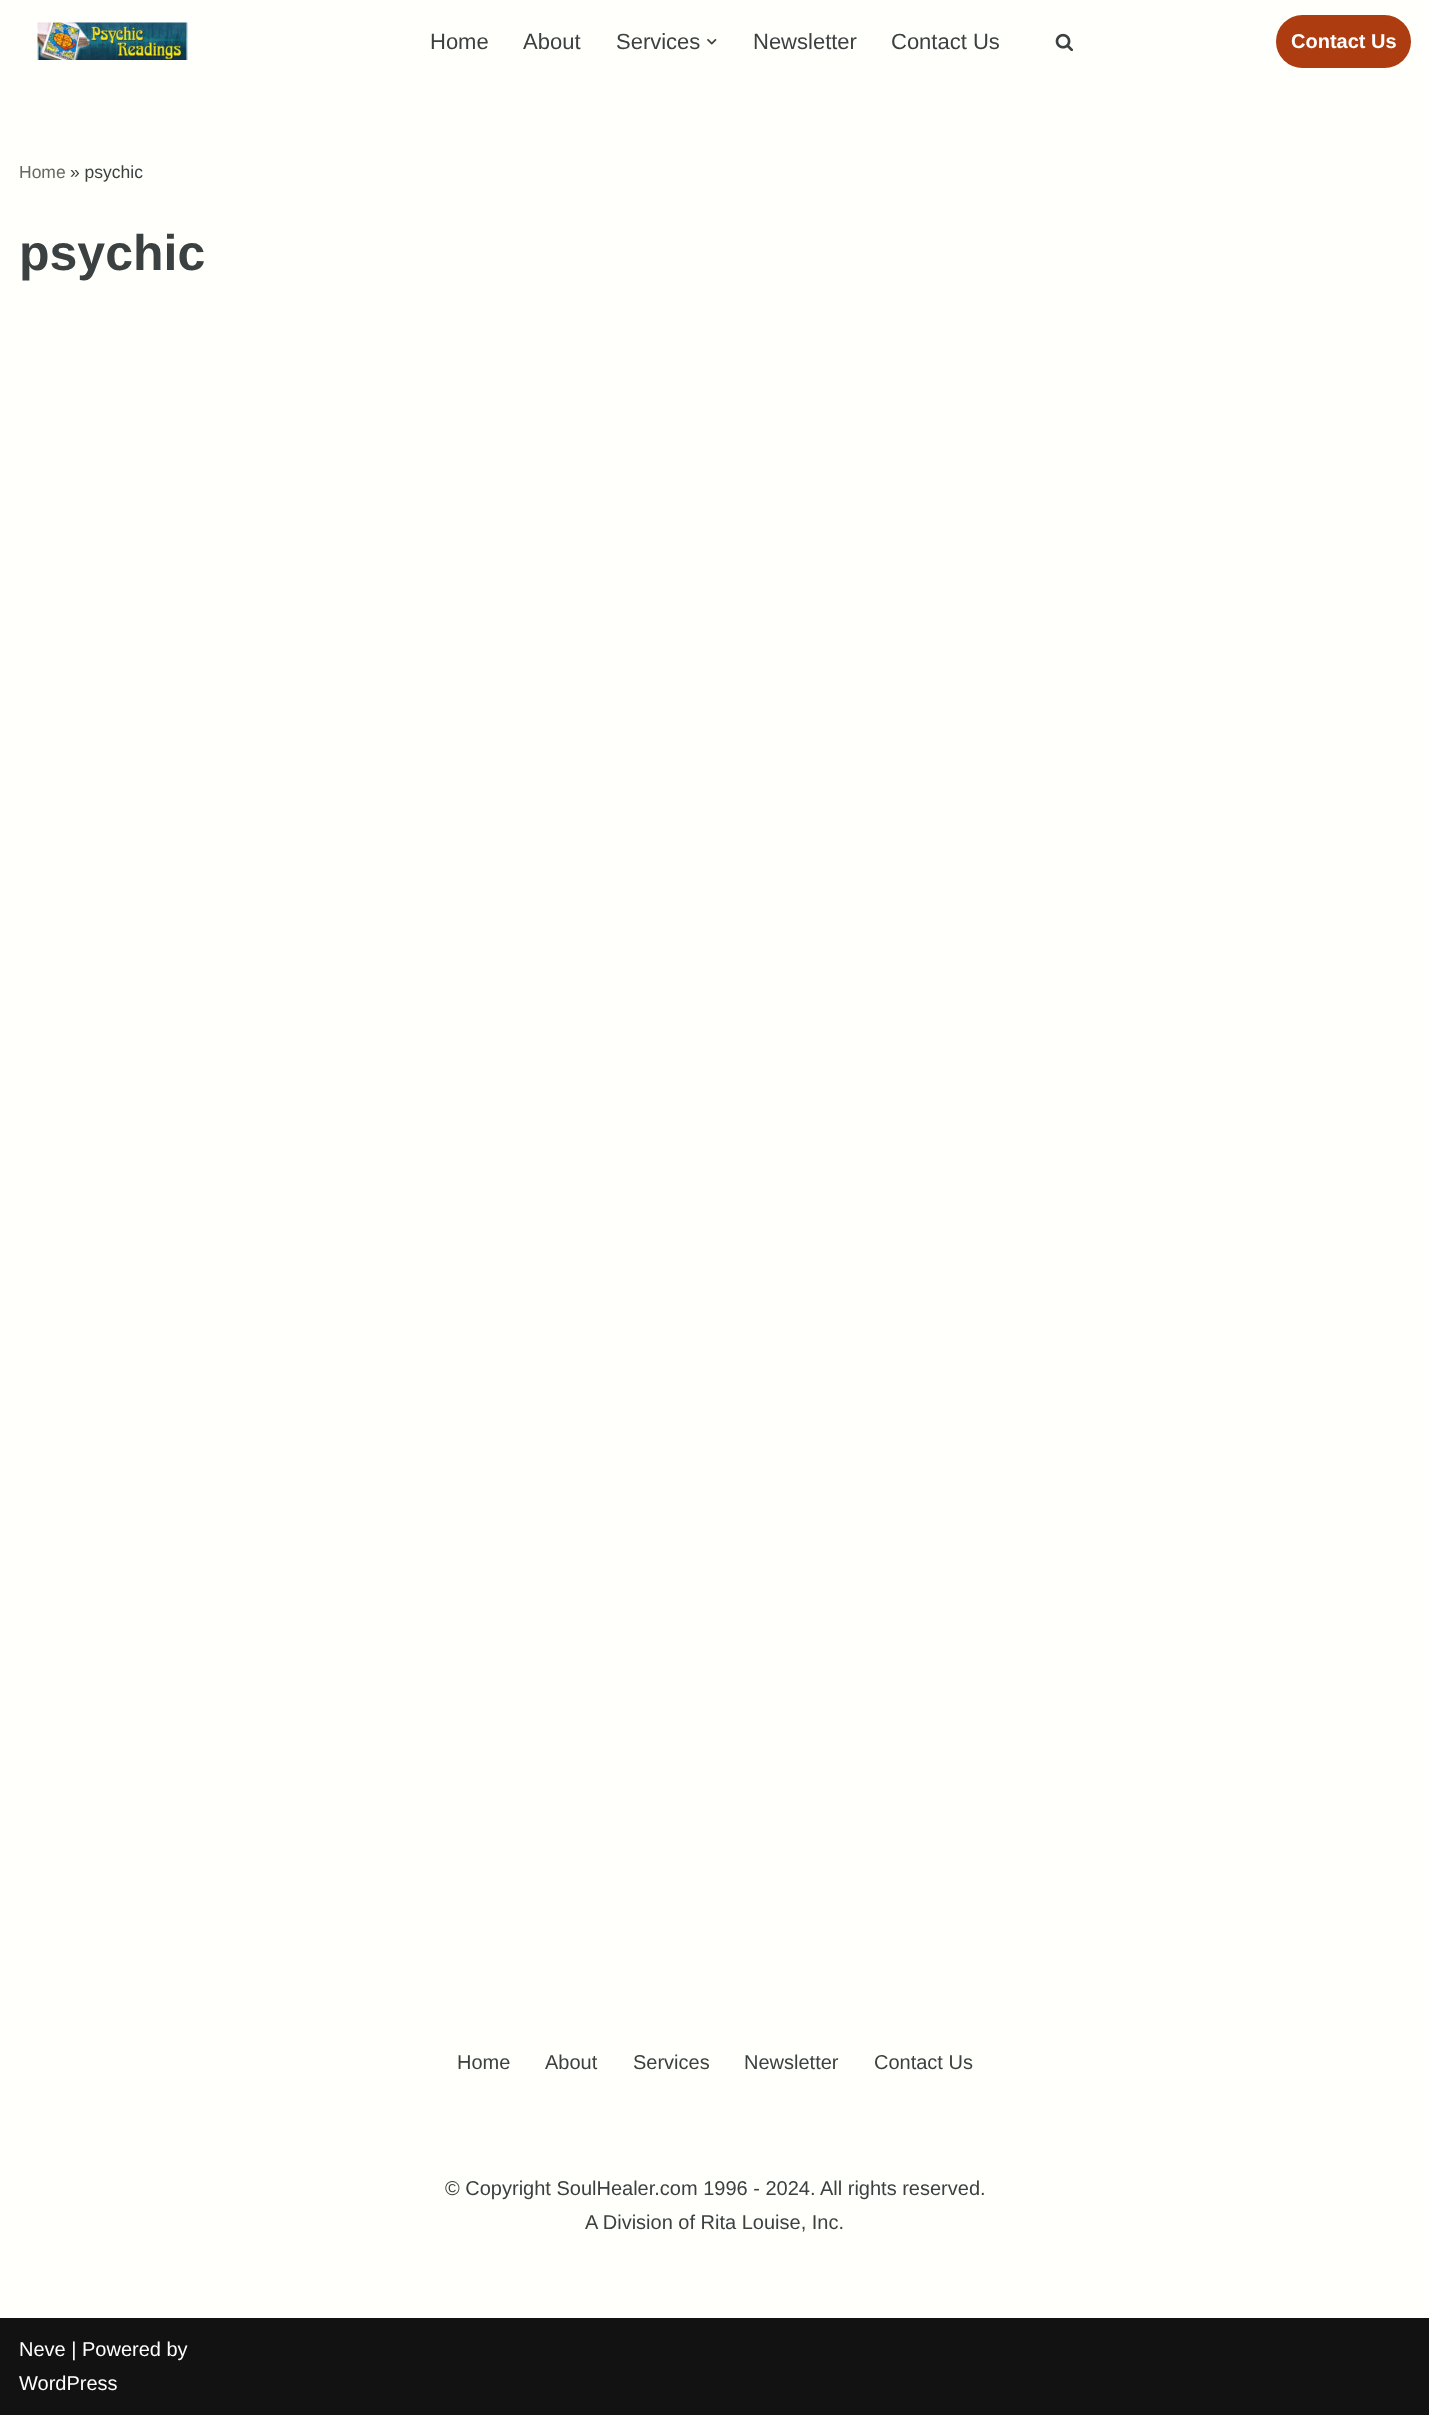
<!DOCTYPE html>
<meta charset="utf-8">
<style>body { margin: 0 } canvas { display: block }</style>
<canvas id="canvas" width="1429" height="2415"></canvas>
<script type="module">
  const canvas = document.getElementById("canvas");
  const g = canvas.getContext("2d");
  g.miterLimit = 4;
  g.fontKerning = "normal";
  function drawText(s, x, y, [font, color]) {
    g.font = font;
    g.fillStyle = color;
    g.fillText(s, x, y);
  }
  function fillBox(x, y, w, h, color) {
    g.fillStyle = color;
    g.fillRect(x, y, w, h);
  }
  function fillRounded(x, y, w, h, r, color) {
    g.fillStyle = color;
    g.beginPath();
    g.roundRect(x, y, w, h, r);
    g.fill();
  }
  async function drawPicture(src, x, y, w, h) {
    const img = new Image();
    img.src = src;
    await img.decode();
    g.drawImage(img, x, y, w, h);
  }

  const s1 = ["22px Liberation Sans", "#3B4040"];
  const s2 = ["bold 20px Liberation Sans", "#FFFFFF"];
  const s3 = ["17.5px Liberation Sans", "#676767"];
  const s4 = ["17.5px Liberation Sans", "#3B4040"];
  const s5 = ["bold 50px Liberation Sans", "#3B4040"];
  const s6 = ["20px Liberation Sans", "#3B4040"];
  const s7 = ["20px Liberation Sans", "#FFFFFF"];

  fillBox(0, 0, 1429, 2415, "#FFFFFB");
  await drawPicture("pic1.png", 37, 22, 151, 38);
  drawText("Home", 430, 49, s1);
  drawText("About", 523, 49, s1);
  drawText("Services", 616, 49, s1);
  await drawPicture("pic2.png", 707, 38, 10, 7);
  drawText("Newsletter", 753, 49, s1);
  drawText("Contact Us", 891, 49, s1);
  await drawPicture("pic3.png", 1055, 33, 19, 18);
  fillRounded(1276, 15, 135, 53, 26.5, "#AD3C11");
  drawText("Contact Us", 1291, 48, s2);
  drawText("Home", 19, 178, s3);
  drawText("» psychic", 70, 178, s4);
  drawText("psychic", 19, 270, s5);
  drawText("Home", 457, 2069, s6);
  drawText("About", 545, 2069, s6);
  drawText("Services", 633, 2069, s6);
  drawText("Newsletter", 744, 2069, s6);
  drawText("Contact Us", 874, 2069, s6);
  drawText("© Copyright SoulHealer.com 1996 - 2024. All rights reserved.", 445, 2195, s6);
  drawText("A Division of Rita Louise, Inc.", 585, 2229, s6);
  fillBox(0, 2318, 1429, 97, "#121212");
  drawText("Neve | Powered by", 19, 2356, s7);
  drawText("WordPress", 19, 2390, s7);
</script>
